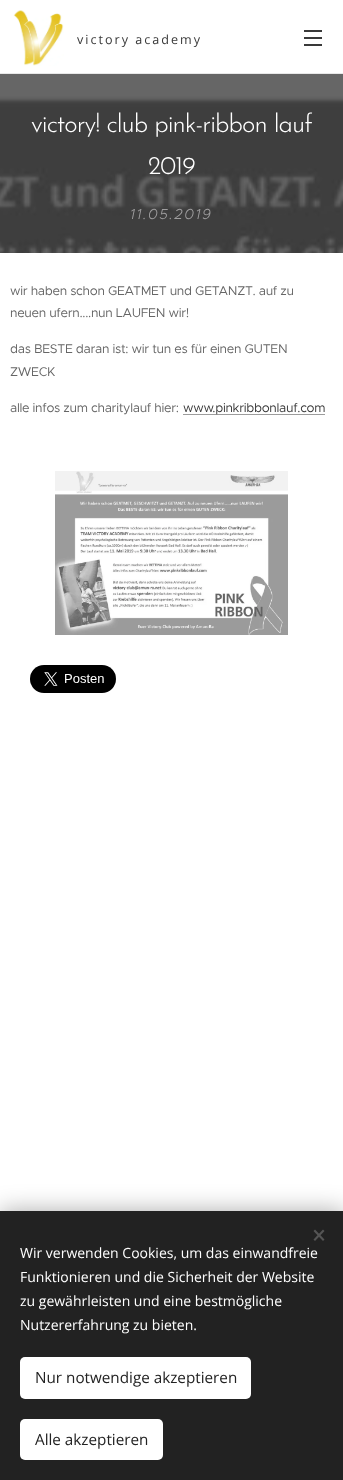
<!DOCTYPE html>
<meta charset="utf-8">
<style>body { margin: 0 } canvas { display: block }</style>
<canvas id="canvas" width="343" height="1480"></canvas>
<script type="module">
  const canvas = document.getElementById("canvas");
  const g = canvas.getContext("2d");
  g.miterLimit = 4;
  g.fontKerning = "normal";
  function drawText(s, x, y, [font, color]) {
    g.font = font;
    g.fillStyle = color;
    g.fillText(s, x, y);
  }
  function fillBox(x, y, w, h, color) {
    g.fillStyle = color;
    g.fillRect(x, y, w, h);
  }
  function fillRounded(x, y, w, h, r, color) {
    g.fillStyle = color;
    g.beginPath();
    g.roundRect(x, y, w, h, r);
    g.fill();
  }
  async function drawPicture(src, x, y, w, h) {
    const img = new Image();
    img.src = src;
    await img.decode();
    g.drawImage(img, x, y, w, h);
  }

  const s1 = ["12.6px Open Sans", "#393939"];
  const s2 = ["300 25.6px Josefin Sans", "#FFFFFF"];
  const s3 = ["italic 300 14.5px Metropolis", "#9F9E9F"];
  const s4 = ["12.6px Metropolis", "#666666"];
  const s5 = ["12.6px Metropolis", "#393939"];
  const s6 = ["14px Open Sans", "#FFFFFF"];
  const s7 = ["15.25px Open Sans", "#222222"];

  fillBox(0, 0, 343, 1480, "#FFFFFF");
  await drawPicture("pic1.png", 13, 10, 51, 56);
  g.letterSpacing = "2px";
  drawText("victory academy", 77, 44, s1);
  fillBox(304, 37, 18, 2, "#393939");
  fillBox(304, 30, 18, 2, "#393939");
  fillBox(304, 44, 18, 2, "#393939");
  fillBox(0, 73, 343, 1, "#E8E8E8");
  await drawPicture("pic2.png", 0, 74, 343, 179);
  g.letterSpacing = "-0.95px";
  drawText("victory! club pink-ribbon lauf", 31, 132, s2);
  drawText("2019", 148, 174, s2);
  g.letterSpacing = "1.5px";
  drawText("11.05.2019", 130, 219, s3);
  g.letterSpacing = "-0.3px";
  drawText("wir haben schon GEATMET und GETANZT. auf zu", 10, 295, s4);
  drawText("neuen ufern....nun LAUFEN wir!", 10, 317, s4);
  drawText("das BESTE daran ist: wir tun es für einen GUTEN", 10, 353, s4);
  drawText("ZWECK", 10, 376, s4);
  drawText("alle infos zum charitylauf hier:", 10, 412, s4);
  fillBox(183, 414, 142, 1, "#9C9C9C");
  drawText("www.pinkribbonlauf.com", 183, 412, s5);
  await drawPicture("pic3.png", 55, 471, 233, 164);
  await drawPicture("pic4.png", 30, 665, 86, 28);
  g.fillStyle = "rgba(0, 0, 0, 0.33)";
  g.filter = "blur(12.5px)";
  g.beginPath();
  g.rect(0, 1211, 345, 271);
  g.fill();
  g.filter = "none";
  fillBox(0, 1211, 343, 269, "#222222");
  g.fillStyle = "#555555";
  g.beginPath();
  g.moveTo(313.5, 1239.5);
  g.lineTo(323, 1229.5);
  g.lineTo(324.5, 1231);
  g.lineTo(315, 1241);
  g.closePath();
  g.fill();
  g.beginPath();
  g.moveTo(315, 1229.5);
  g.lineTo(324.5, 1239.5);
  g.lineTo(323, 1241);
  g.lineTo(313.5, 1231);
  g.closePath();
  g.fill();
  g.letterSpacing = "0px";
  drawText("Wir verwenden Cookies, um das einwandfreie", 20, 1258, s6);
  drawText("Funktionieren und die Sicherheit der Website", 20, 1282, s6);
  drawText("zu gewährleisten und eine bestmögliche", 20, 1306, s6);
  drawText("Nutzererfahrung zu bieten.", 20, 1330, s6);
  fillRounded(20, 1357, 231, 42, 5, "#FFFFFF");
  drawText("Nur notwendige akzeptieren", 35, 1383, s7);
  fillRounded(20, 1419, 143, 41, 5, "#FFFFFF");
  drawText("Alle akzeptieren", 35, 1445, s7);
</script>
